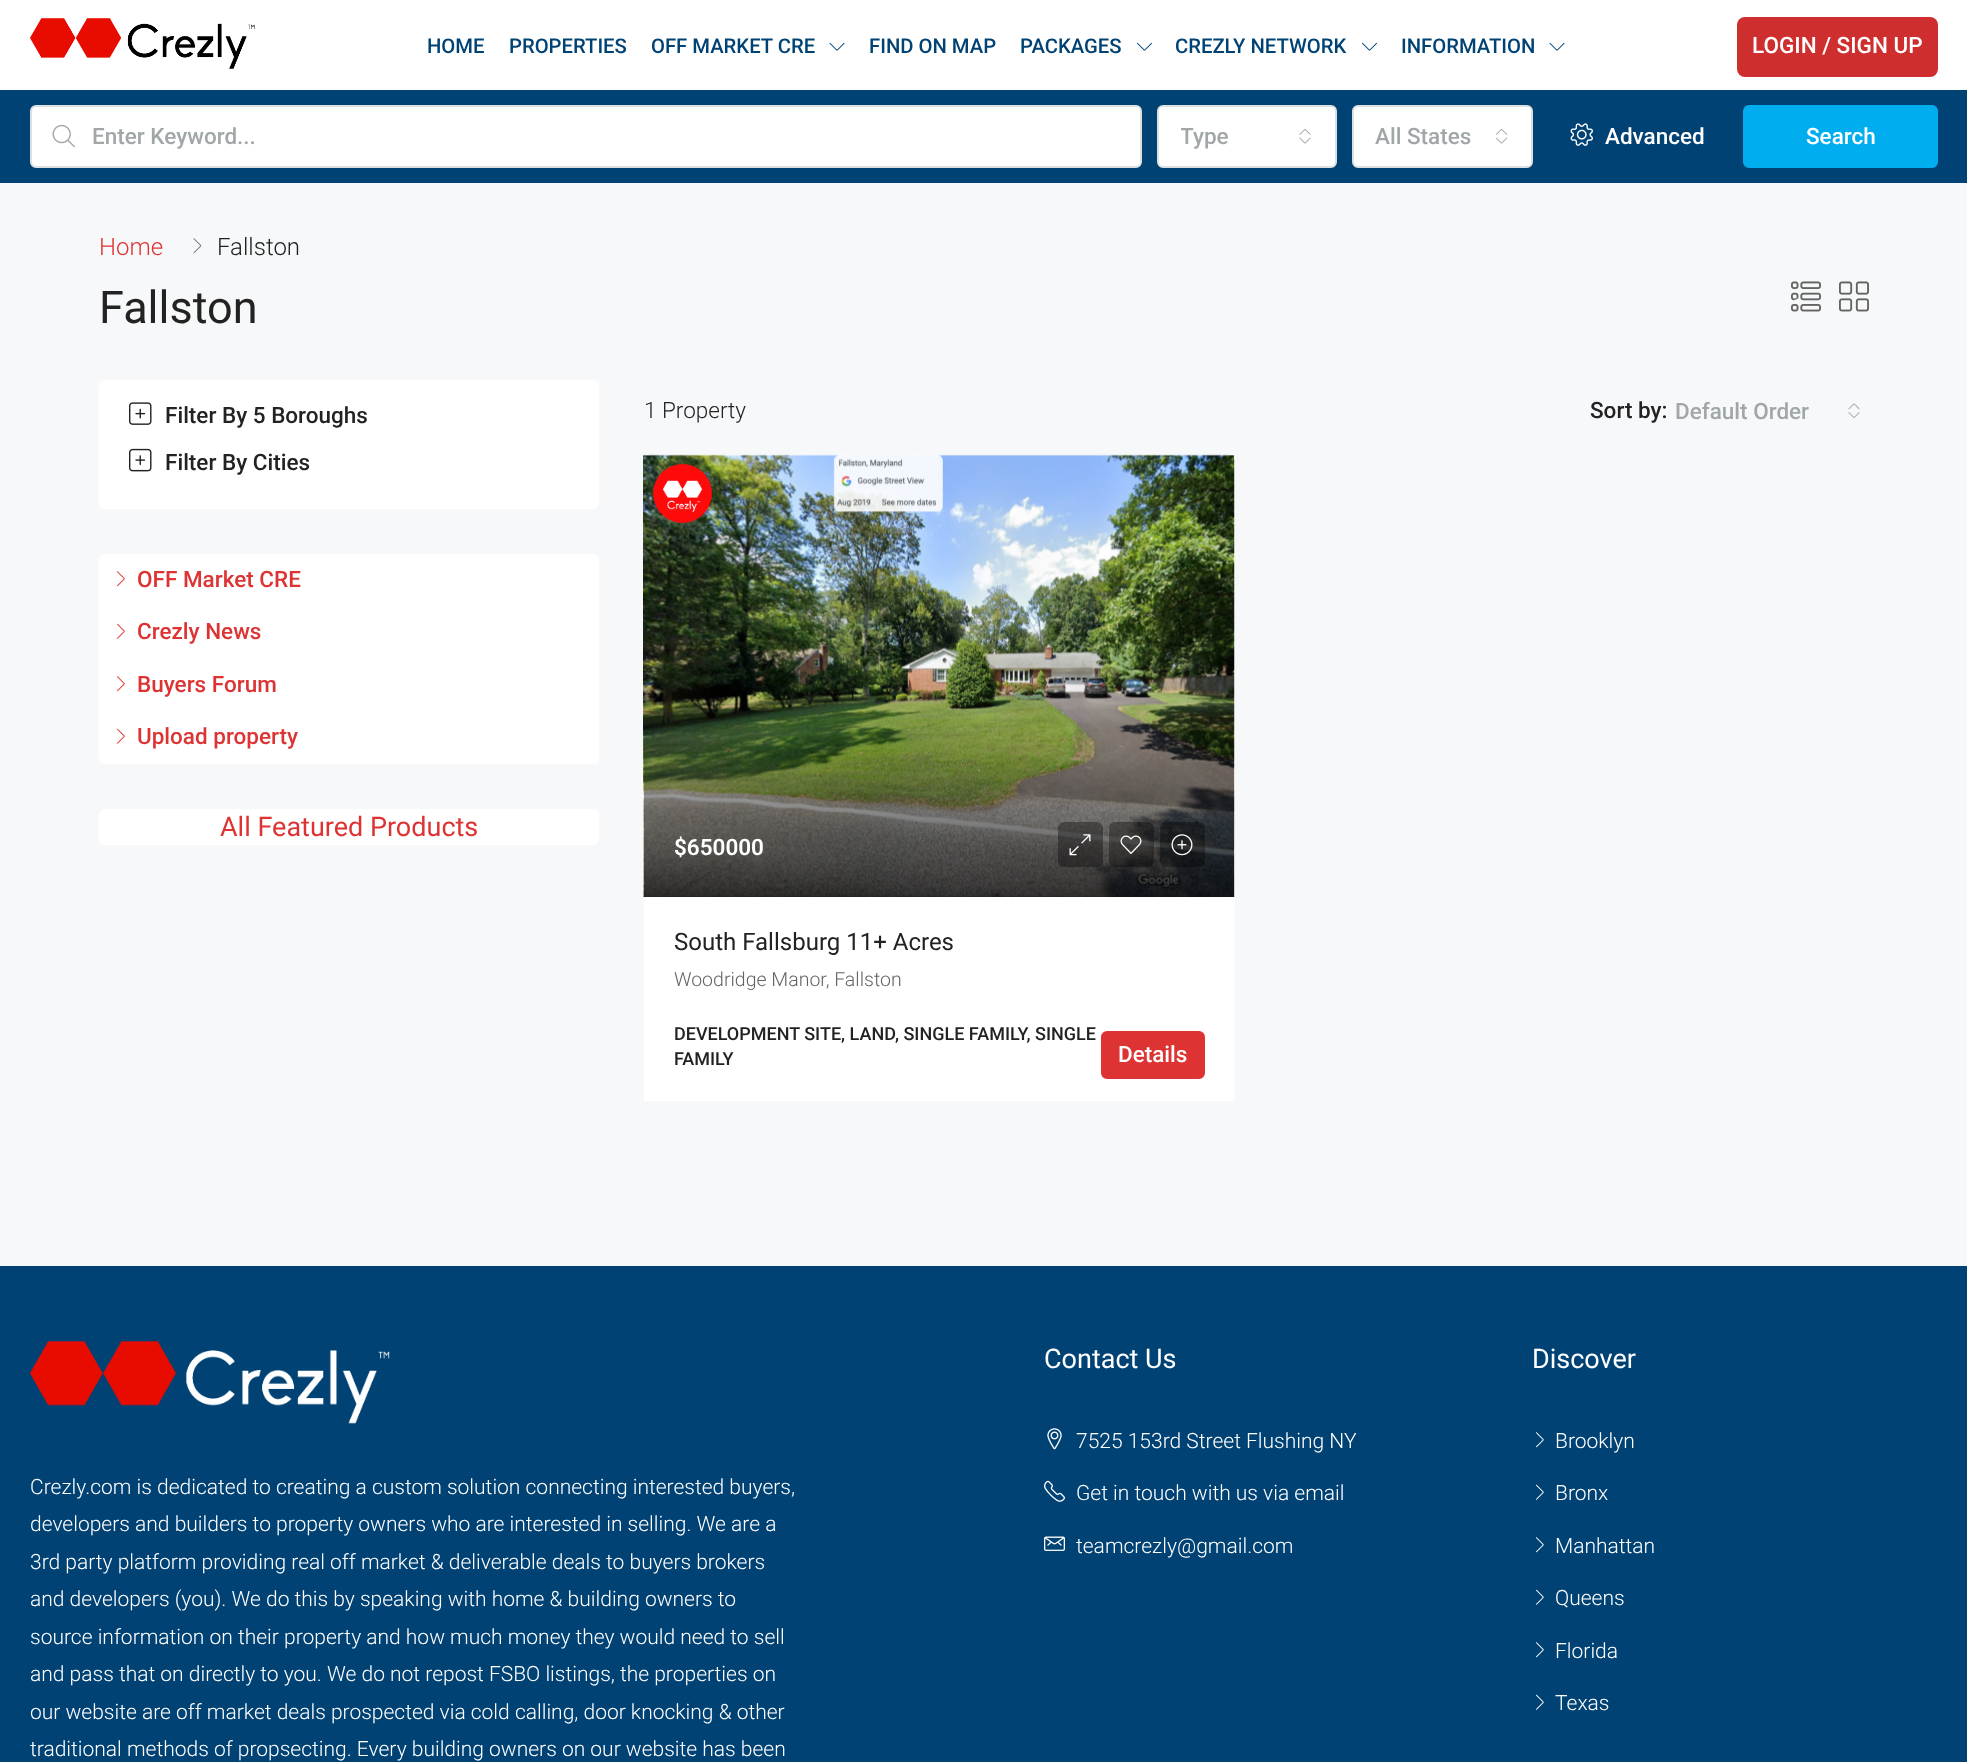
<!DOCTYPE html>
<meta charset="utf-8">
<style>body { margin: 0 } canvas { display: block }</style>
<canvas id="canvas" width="1967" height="1762"></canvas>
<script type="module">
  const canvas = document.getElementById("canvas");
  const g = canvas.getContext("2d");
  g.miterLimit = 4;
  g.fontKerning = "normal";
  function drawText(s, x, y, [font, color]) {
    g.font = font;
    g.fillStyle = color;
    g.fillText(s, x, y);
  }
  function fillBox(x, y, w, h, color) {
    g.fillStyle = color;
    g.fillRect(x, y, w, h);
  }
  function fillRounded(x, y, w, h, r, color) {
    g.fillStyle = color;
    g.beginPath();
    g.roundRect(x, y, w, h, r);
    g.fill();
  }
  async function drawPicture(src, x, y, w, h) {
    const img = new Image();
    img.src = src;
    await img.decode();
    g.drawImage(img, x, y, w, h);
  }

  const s1 = ["500 20.25px Roboto", "#004274"];
  const s2 = ["500 22.5px Roboto", "#FFFFFF"];
  const s3 = ["500 22.5px Roboto", "#A1A7A8"];
  const s4 = ["300 24px Roboto", "#DD3333"];
  const s5 = ["300 24px Roboto", "#222222"];
  const s6 = ["45px Roboto", "#222222"];
  const s7 = ["500 22.5px Roboto", "#222222"];
  const s8 = ["500 22.5px Roboto", "#DD3333"];
  const s9 = ["27px Roboto", "#DD3333"];
  const s10 = ["300 22.5px Roboto", "#222222"];
  const s11 = ["600 22.5px Roboto", "#FFFFFF"];
  const s12 = ["24px Roboto", "#222222"];
  const s13 = ["300 19.5px Roboto", "#636363"];
  const s14 = ["500 18px Roboto", "#222222"];
  const s15 = ["300 21px Roboto", "#FFFFFF"];
  const s16 = ["27px Roboto", "#FFFFFF"];

  fillBox(0, 0, 1967, 1762, "#F7F8F9");
  fillBox(0, 0, 1967, 90, "#FFFFFF");
  await drawPicture("pic1.png", 30, 18, 225, 51);
  drawText("HOME", 427, 53, s1);
  drawText("PROPERTIES", 509, 53, s1);
  drawText("OFF MARKET CRE", 651, 53, s1);
  await drawPicture("pic2.png", 829, 42, 16, 9);
  drawText("FIND ON MAP", 869, 53, s1);
  drawText("PACKAGES", 1020, 53, s1);
  await drawPicture("pic3.png", 1137, 42, 15, 9);
  drawText("CREZLY NETWORK", 1175, 53, s1);
  await drawPicture("pic3.png", 1362, 42, 15, 9);
  drawText("INFORMATION", 1401, 53, s1);
  await drawPicture("pic2.png", 1549, 42, 16, 9);
  fillRounded(1737, 17, 201, 60, 8, "#CF2E2E");
  drawText("LOGIN / SIGN UP", 1752, 53, s2);
  fillBox(0, 90, 1967, 93, "#004274");
  g.fillStyle = "#FFFFFF";
  g.beginPath();
  g.roundRect(31, 106, 1110, 61, 5);
  g.fill();
  g.strokeStyle = "#DCE0E0";
  g.lineWidth = 2;
  g.stroke();
  await drawPicture("pic4.png", 52, 124, 23, 24);
  drawText("Enter Keyword...", 92, 144, s3);
  g.fillStyle = "#FFFFFF";
  g.beginPath();
  g.roundRect(1158, 106, 178, 61, 5);
  g.fill();
  g.stroke();
  g.save();
  g.beginPath();
  g.rect(1181, 107, 94, 60);
  g.clip();
  drawText("Type", 1180, 144, s3);
  g.restore();
  await drawPicture("pic5.png", 1299, 129, 12, 15);
  g.beginPath();
  g.roundRect(1353, 106, 179, 61, 5);
  g.fill();
  g.stroke();
  drawText("All States", 1375, 144, s3);
  await drawPicture("pic6.png", 1495, 129, 13, 15);
  await drawPicture("pic7.png", 1570, 123, 23, 23);
  drawText("Advanced", 1605, 144, s2);
  g.fillStyle = "#00AEEF";
  g.beginPath();
  g.roundRect(1744, 106, 193, 61, 5);
  g.fill();
  g.strokeStyle = "#00AEEF";
  g.stroke();
  drawText("Search", 1806, 144, s2);
  drawText("Home", 99, 255, s4);
  await drawPicture("pic8.png", 193, 238, 9, 16);
  drawText("Fallston", 217, 255, s5);
  drawText("Fallston", 99, 323, s6);
  await drawPicture("pic9.png", 1791, 281, 30, 31);
  await drawPicture("pic10.png", 1839, 281, 30, 31);
  fillRounded(99, 380, 500, 129, 6, "#FFFFFF");
  await drawPicture("pic11.png", 129, 402, 23, 23);
  drawText("Filter By 5 Boroughs", 165, 423, s7);
  await drawPicture("pic12.png", 129, 448, 23, 24);
  drawText("Filter By Cities", 165, 470, s7);
  fillRounded(99, 554, 500, 210, 6, "#FFFFFF");
  await drawPicture("pic13.png", 117, 571, 8, 16);
  drawText("OFF Market CRE", 137, 587, s8);
  await drawPicture("pic14.png", 117, 623, 8, 16);
  drawText("Crezly News", 137, 639, s8);
  await drawPicture("pic13.png", 117, 676, 8, 16);
  drawText("Buyers Forum", 137, 692, s8);
  await drawPicture("pic14.png", 117, 728, 8, 16);
  drawText("Upload property", 137, 744, s8);
  fillRounded(99, 809, 500, 36, 6, "#FFFFFF");
  drawText("All Featured Products", 220, 836, s9);
  drawText("1 Property", 644, 418, s10);
  drawText("Sort by:", 1590, 418, s7);
  drawText("Default Order", 1675, 419, s3);
  await drawPicture("pic15.png", 1848, 403, 12, 15);
  g.fillStyle = "#FFFFFF";
  g.beginPath();
  g.roundRect(644, 455, 591, 646, [6, 6, 0, 0]);
  g.fill();
  await drawPicture("pic16.png", 647, 454, 588, 443);
  await drawPicture("pic17.png", 643, 455, 591, 442);
  await drawPicture("pic18.png", 652, 463, 61, 60);
  drawText("$650000", 674, 855, s11);
  fillRounded(1058, 822, 45, 45, 6, "rgba(0, 0, 0, 0.35)");
  await drawPicture("pic19.png", 1069, 834, 22, 22);
  fillRounded(1109, 822, 45, 45, 6, "rgba(0, 0, 0, 0.35)");
  await drawPicture("pic20.png", 1120, 835, 22, 19);
  fillRounded(1160, 822, 45, 45, 6, "rgba(0, 0, 0, 0.35)");
  await drawPicture("pic21.png", 1171, 834, 22, 22);
  drawText("South Fallsburg 11+ Acres", 674, 950, s12);
  drawText("Woodridge Manor, Fallston", 674, 986, s13);
  drawText("DEVELOPMENT SITE, LAND, SINGLE FAMILY, SINGLE", 674, 1040, s14);
  drawText("FAMILY", 674, 1065, s14);
  g.fillStyle = "#DD3333";
  g.beginPath();
  g.roundRect(1102, 1032, 102, 46, 5);
  g.fill();
  g.strokeStyle = "#DD3333";
  g.stroke();
  drawText("Details", 1118, 1062, s2);
  fillBox(0, 1266, 1967, 496, "#004274");
  await drawPicture("pic22.png", 30, 1341, 360, 83);
  drawText("Crezly.com is dedicated to creating a custom solution connecting interested buyers,", 30, 1494, s15);
  drawText("developers and builders to property owners who are interested in selling. We are a", 30, 1531, s15);
  drawText("3rd party platform providing real off market & deliverable deals to buyers brokers", 30, 1569, s15);
  drawText("and developers (you). We do this by speaking with home & building owners to", 30, 1606, s15);
  drawText("source information on their property and how much money they would need to sell", 30, 1644, s15);
  drawText("and pass that on directly to you. We do not repost FSBO listings, the properties on", 30, 1681, s15);
  drawText("our website are off market deals prospected via cold calling, door knocking & other", 30, 1719, s15);
  drawText("traditional methods of propsecting. Every building owners on our website has been", 30, 1756, s15);
  drawText("Contact Us", 1044, 1368, s16);
  await drawPicture("pic23.png", 1047, 1428, 15, 22);
  drawText("7525 153rd Street Flushing NY", 1076, 1448, s15);
  await drawPicture("pic24.png", 1044, 1480, 21, 22);
  drawText("Get in touch with us via email", 1076, 1500, s15);
  await drawPicture("pic25.png", 1044, 1536, 21, 15);
  drawText("teamcrezly@gmail.com", 1076, 1553, s15);
  drawText("Discover", 1532, 1368, s16);
  await drawPicture("pic26.png", 1536, 1432, 8, 16);
  drawText("Brooklyn", 1555, 1448, s15);
  await drawPicture("pic27.png", 1536, 1484, 8, 16);
  drawText("Bronx", 1555, 1500, s15);
  await drawPicture("pic26.png", 1536, 1537, 8, 16);
  drawText("Manhattan", 1555, 1553, s15);
  await drawPicture("pic27.png", 1536, 1589, 8, 16);
  drawText("Queens", 1555, 1605, s15);
  await drawPicture("pic26.png", 1536, 1642, 8, 16);
  drawText("Florida", 1555, 1658, s15);
  await drawPicture("pic27.png", 1536, 1694, 8, 16);
  drawText("Texas", 1555, 1710, s15);
</script>
